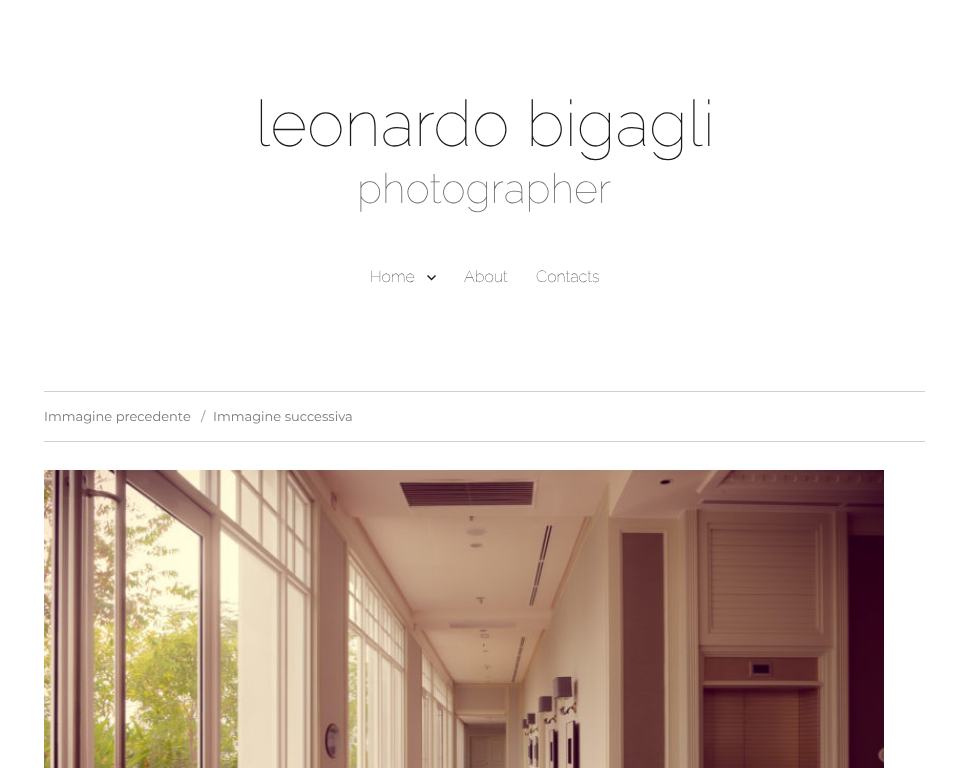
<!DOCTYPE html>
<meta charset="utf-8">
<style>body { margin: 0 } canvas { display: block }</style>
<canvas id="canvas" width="969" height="768"></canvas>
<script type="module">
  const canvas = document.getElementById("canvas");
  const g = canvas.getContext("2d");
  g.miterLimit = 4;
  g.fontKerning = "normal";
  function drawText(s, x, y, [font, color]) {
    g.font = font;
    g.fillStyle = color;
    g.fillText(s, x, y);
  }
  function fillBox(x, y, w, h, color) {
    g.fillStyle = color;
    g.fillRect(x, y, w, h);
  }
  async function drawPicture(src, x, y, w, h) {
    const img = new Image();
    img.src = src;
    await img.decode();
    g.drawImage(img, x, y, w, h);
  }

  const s1 = ["100 64px Raleway", "#1A1A1A"];
  const s2 = ["100 41.5px Raleway", "#686868"];
  const s3 = ["100 16px Raleway", "#1A1A1A"];
  const s4 = ["100 13px Montserrat", "#7A7A7A"];
  const s5 = ["100 13px Montserrat", "#959595"];

  fillBox(0, 0, 969, 768, "#FFFFFF");
  drawText("leonardo bigagli", 255, 146, s1);
  drawText("photographer", 357, 203, s2);
  drawText("Home", 370, 282, s3);
  await drawPicture("pic1.png", 427, 275, 9, 6);
  drawText("About", 464, 282, s3);
  drawText("Contacts", 536, 282, s3);
  fillBox(44, 391, 881, 1, "#D1D1D1");
  fillBox(44, 441, 881, 1, "#D1D1D1");
  drawText("Immagine precedente", 44, 421, s4);
  drawText("/", 201, 421, s5);
  drawText("Immagine successiva", 213, 421, s4);
  await drawPicture("pic2.png", 44, 470, 840, 298);
</script>
